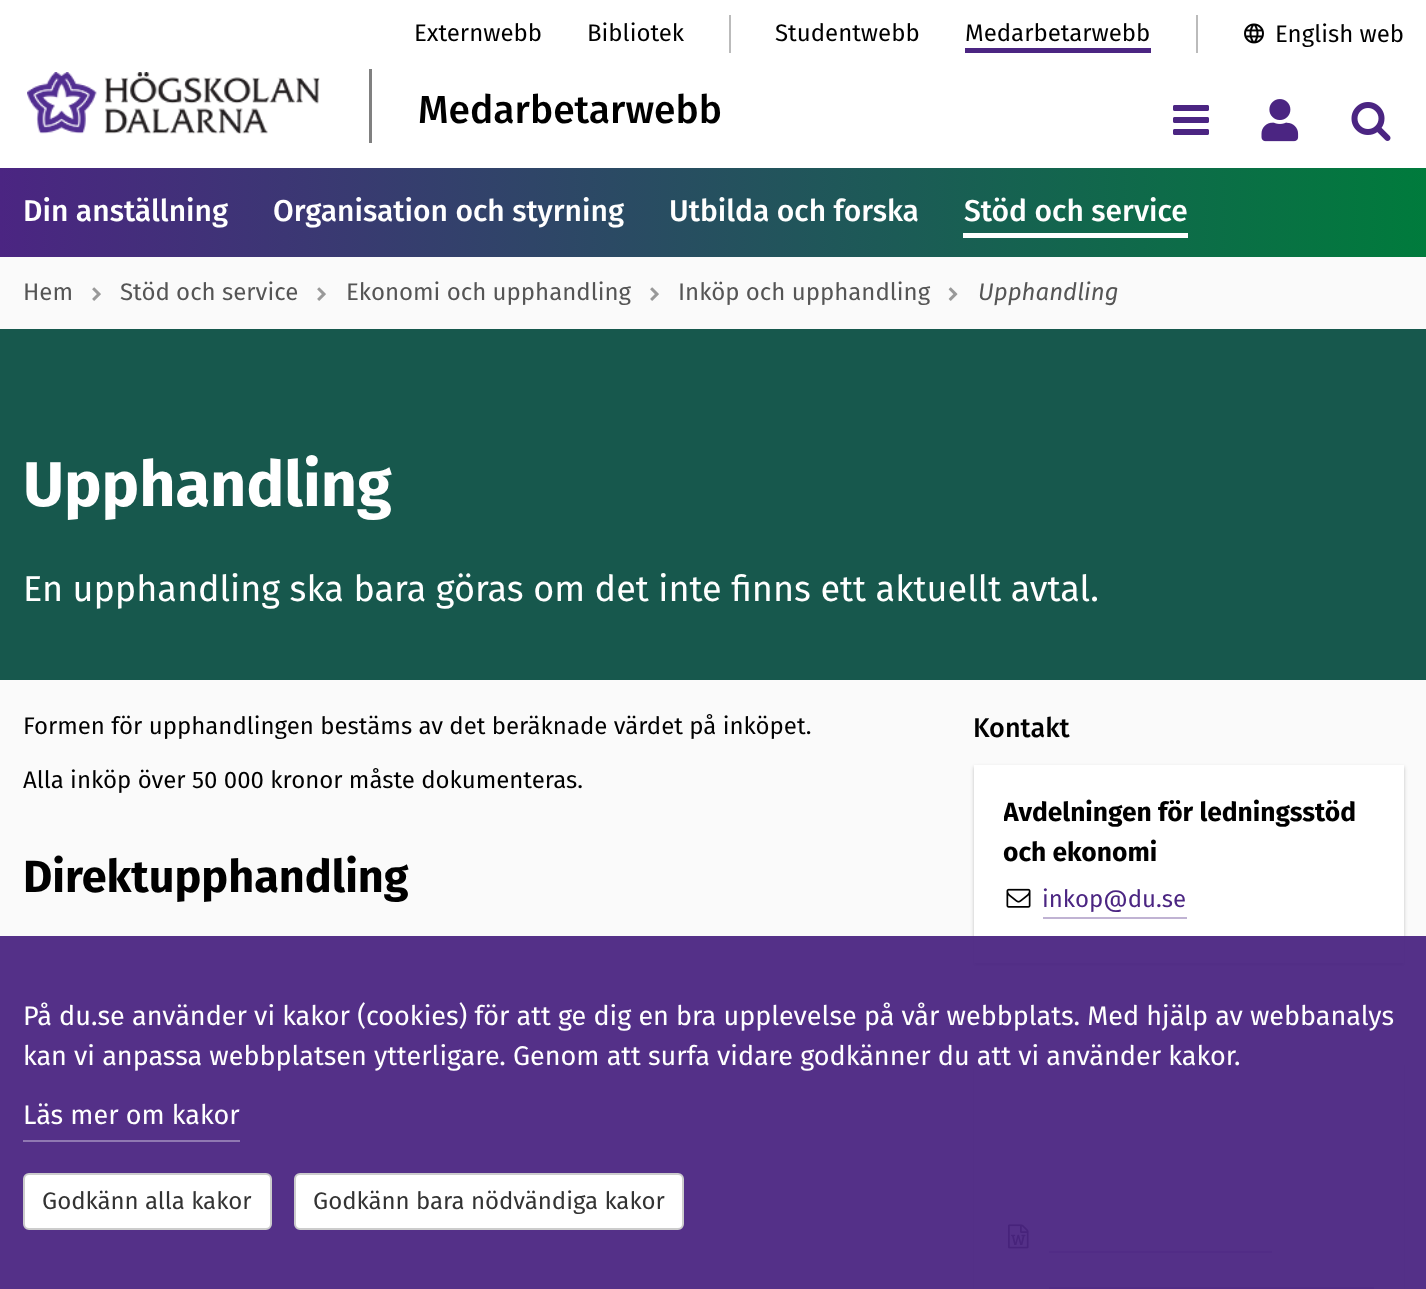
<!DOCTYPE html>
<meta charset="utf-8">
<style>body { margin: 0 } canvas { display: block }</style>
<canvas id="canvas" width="1426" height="1289"></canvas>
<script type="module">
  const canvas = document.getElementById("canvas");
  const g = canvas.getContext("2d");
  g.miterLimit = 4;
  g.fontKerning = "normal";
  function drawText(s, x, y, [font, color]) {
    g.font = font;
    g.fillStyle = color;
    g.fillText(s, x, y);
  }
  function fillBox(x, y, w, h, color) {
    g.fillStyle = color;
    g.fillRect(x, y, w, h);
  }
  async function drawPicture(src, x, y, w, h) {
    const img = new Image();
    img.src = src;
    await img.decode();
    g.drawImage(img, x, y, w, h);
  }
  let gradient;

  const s1 = ["24px Fira Sans", "#000000"];
  const s2 = ["500 39px Fira Sans", "#000000"];
  const s3 = ["500 30px Fira Sans", "#FFFFFF"];
  const s4 = ["24px Fira Sans", "#555555"];
  const s5 = ["italic 24px Fira Sans", "#555555"];
  const s6 = ["bold 63px Fira Sans", "#FFFFFF"];
  const s7 = ["36px Fira Sans", "#FFFFFF"];
  const s8 = ["bold 45px Fira Sans", "#000000"];
  const s9 = ["500 27px Fira Sans", "#000000"];
  const s10 = ["bold 26.4px Fira Sans", "#000000"];
  const s11 = ["24px Fira Sans", "#4B2582"];
  const s12 = ["27px Fira Sans", "#FFFFFF"];
  const s13 = ["24px Fira Sans", "#333333"];

  fillBox(0, 0, 1426, 1289, "#FAFAFA");
  fillBox(0, 0, 1426, 168, "#FFFFFF");
  fillBox(729, 15, 2, 38, "#BBBBBB");
  drawText("Externwebb", 414, 41, s1);
  drawText("Bibliotek", 587, 41, s1);
  fillBox(1196, 15, 2, 38, "#BBBBBB");
  drawText("Studentwebb", 775, 41, s1);
  fillBox(965, 48, 186, 5, "#4B2582");
  drawText("Medarbetarwebb", 965, 41, s1);
  await drawPicture("pic1.png", 1244, 23, 20, 21);
  drawText("English web", 1275, 42, s1);
  await drawPicture("pic2.png", 27, 72, 293, 62);
  fillBox(369, 69, 3, 74, "#808080");
  drawText("Medarbetarwebb", 418, 123, s2);
  await drawPicture("pic3.png", 1173, 105, 36, 30);
  await drawPicture("pic4.png", 1261, 99, 38, 43);
  await drawPicture("pic5.png", 1351, 102, 40, 39);
  gradient = g.createLinearGradient(0, 212, 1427, 212);
  gradient.addColorStop(0, "#4B2582");
  gradient.addColorStop(1, "#007B3C");
  g.fillStyle = gradient;
  g.fillRect(0, 168, 1426, 89);
  drawText("Din anställning", 23, 221, s3);
  drawText("Organisation och styrning", 273, 221, s3);
  drawText("Utbilda och forska", 669, 221, s3);
  fillBox(963, 233, 225, 5, "#FFFFFF");
  drawText("Stöd och service", 964, 221, s3);
  drawText("Hem", 23, 300, s4);
  await drawPicture("pic6.png", 92, 287, 9, 14);
  drawText("Stöd och service", 120, 300, s4);
  await drawPicture("pic6.png", 317, 287, 9, 14);
  drawText("Ekonomi och upphandling", 346, 300, s4);
  await drawPicture("pic6.png", 650, 287, 9, 14);
  drawText("Inköp och upphandling", 678, 300, s4);
  await drawPicture("pic7.png", 948, 287, 10, 14);
  drawText("Upphandling", 978, 300, s5);
  fillBox(0, 329, 1426, 351, "#17584D");
  drawText("Upphandling", 23, 506, s6);
  drawText("En upphandling ska bara göras om det inte finns ett aktuellt avtal.", 23, 601, s7);
  drawText("Formen för upphandlingen bestäms av det beräknade värdet på inköpet.", 23, 734, s1);
  drawText("Alla inköp över 50 000 kronor måste dokumenteras.", 23, 788, s1);
  drawText("Direktupphandling", 23, 892, s8);
  drawText("Kontakt", 973, 737, s9);
  g.fillStyle = "rgba(0, 0, 0, 0.1)";
  g.filter = "blur(1.5px)";
  g.beginPath();
  g.rect(974, 767, 430, 198);
  g.fill();
  g.filter = "none";
  g.fillStyle = "rgba(0, 0, 0, 0.12)";
  g.filter = "blur(2px)";
  g.beginPath();
  g.rect(974, 767, 430, 198);
  g.fill();
  g.filter = "none";
  fillBox(974, 765, 430, 198, "#FFFFFF");
  g.save();
  g.beginPath();
  g.rect(1004, 795, 370, 138);
  g.clip();
  drawText("Avdelningen för ledningsstöd", 1003, 821, s10);
  g.restore();
  drawText("och ekonomi", 1003, 861, s10);
  await drawPicture("pic8.png", 1006, 888, 25, 20);
  fillBox(1043, 917, 144, 2, "#C0B3D3");
  drawText("inkop@du.se", 1042, 907, s11);
  g.fillStyle = "rgba(0, 0, 0, 0.1)";
  g.filter = "blur(1.5px)";
  g.beginPath();
  g.rect(974, 1065, 430, 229);
  g.fill();
  g.filter = "none";
  g.fillStyle = "rgba(0, 0, 0, 0.12)";
  g.filter = "blur(2px)";
  g.beginPath();
  g.rect(974, 1065, 430, 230);
  g.fill();
  g.filter = "none";
  fillBox(974, 1064, 430, 225, "#FFFFFF");
  await drawPicture("pic9.png", 1008, 1224, 21, 25);
  fillBox(1049, 1251, 223, 2, "#C0B3D3");
  fillBox(1049, 1287, 325, 2, "#C0B3D3");
  fillBox(0, 936, 1426, 353, "rgba(75, 37, 130, 0.95)");
  drawText("På du.se använder vi kakor (cookies) för att ge dig en bra upplevelse på vår webbplats. Med hjälp av webbanalys", 23, 1025, s12);
  drawText("kan vi anpassa webbplatsen ytterligare. Genom att surfa vidare godkänner du att vi använder kakor.", 23, 1065, s12);
  drawText("Läs mer om kakor", 23, 1124, s12);
  fillBox(23, 1140, 217, 2, "#9078B2");
  g.fillStyle = "#FFFFFF";
  g.beginPath();
  g.roundRect(24, 1174, 247, 55, 5);
  g.fill();
  g.strokeStyle = "#CCCCCC";
  g.lineWidth = 2;
  g.stroke();
  drawText("Godkänn alla kakor", 42, 1209, s13);
  g.fillStyle = "#FFFFFF";
  g.beginPath();
  g.roundRect(295, 1174, 388, 55, 5);
  g.fill();
  g.stroke();
  drawText("Godkänn bara nödvändiga kakor", 313, 1209, s13);
</script>
